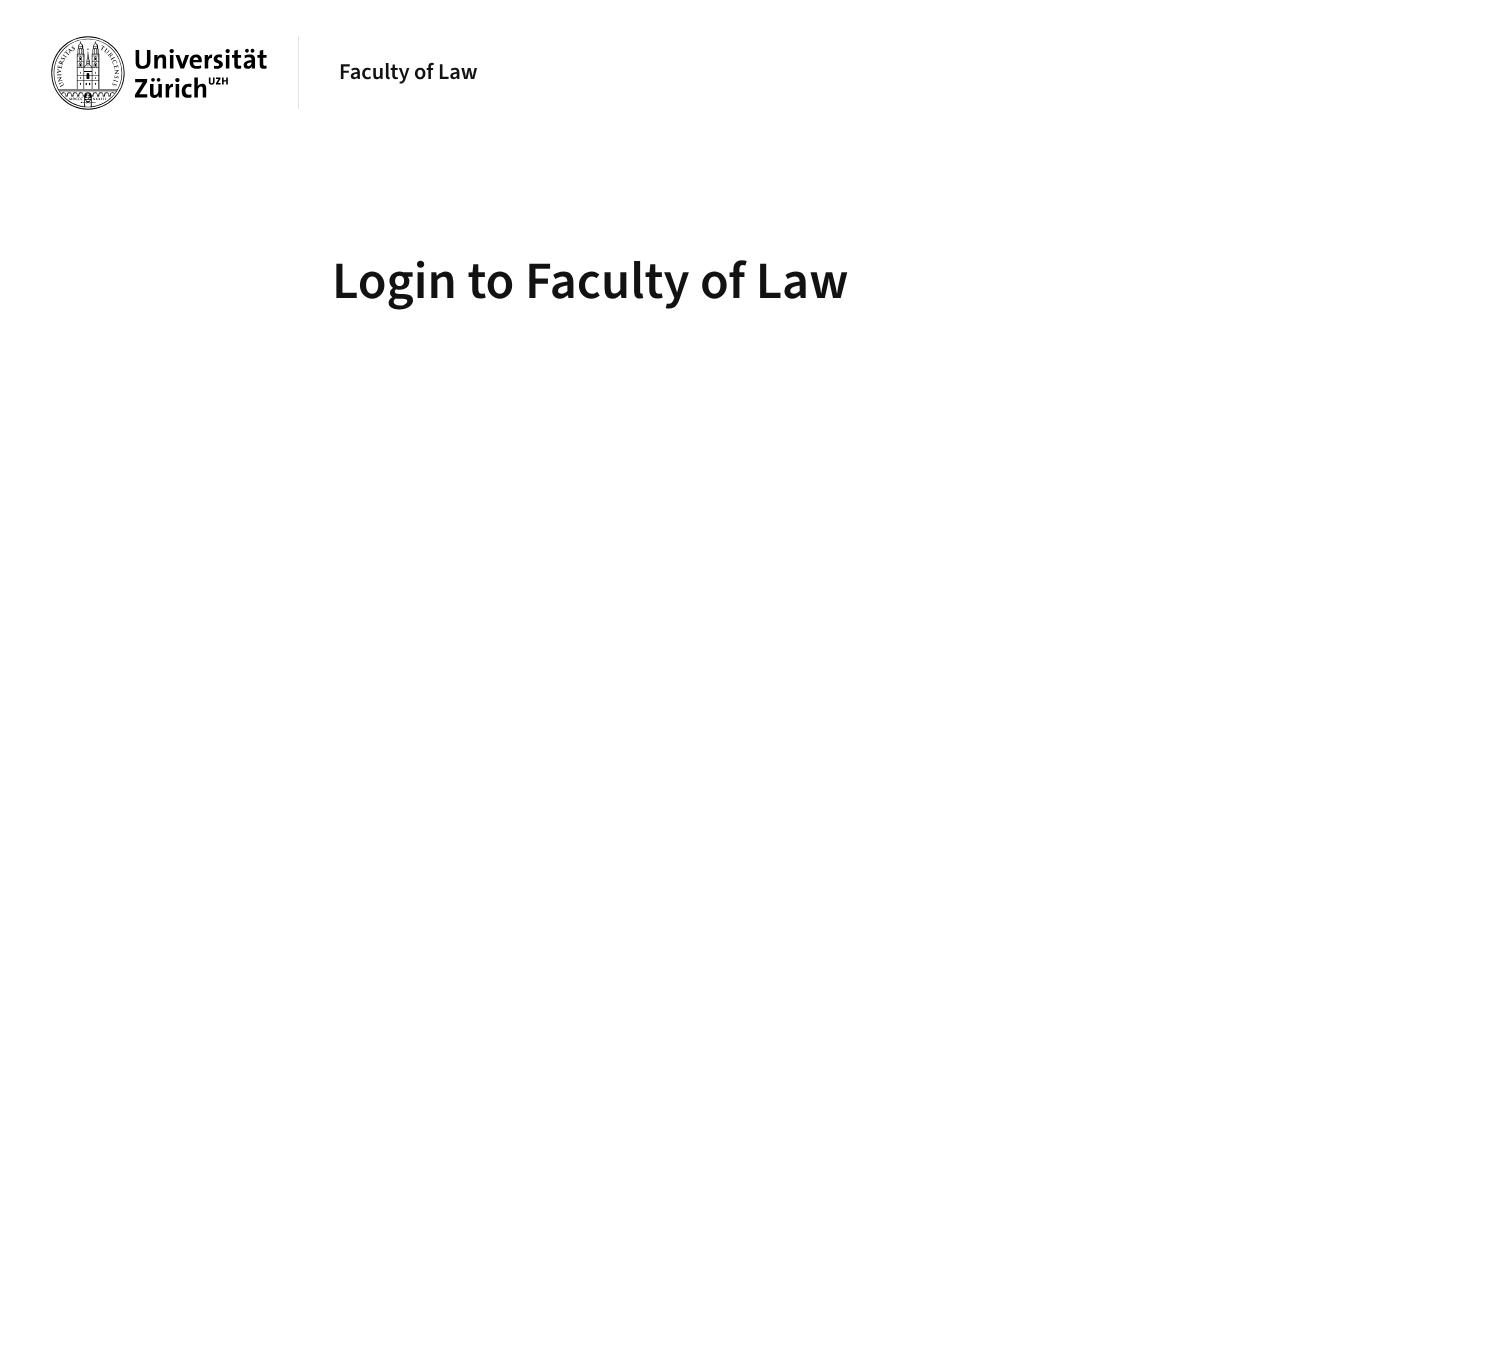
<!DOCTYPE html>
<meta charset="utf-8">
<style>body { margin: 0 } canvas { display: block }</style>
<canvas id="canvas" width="1493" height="1352"></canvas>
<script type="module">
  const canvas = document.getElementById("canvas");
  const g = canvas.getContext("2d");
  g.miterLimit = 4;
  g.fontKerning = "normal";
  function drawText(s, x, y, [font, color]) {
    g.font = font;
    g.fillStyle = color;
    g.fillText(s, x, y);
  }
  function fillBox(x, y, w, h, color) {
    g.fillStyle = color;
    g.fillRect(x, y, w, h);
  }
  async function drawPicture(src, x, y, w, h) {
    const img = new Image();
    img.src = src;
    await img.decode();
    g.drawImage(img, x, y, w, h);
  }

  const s1 = ["600 22.5px 'Source Sans 3'", "#121212"];
  const s2 = ["600 52.5px 'Source Sans 3'", "#121212"];

  fillBox(0, 0, 1493, 1352, "#FFFFFF");
  await drawPicture("pic1.png", 51, 36, 216, 74);
  fillBox(298, 36, 1, 73, "#E3E3E3");
  drawText("Faculty of Law", 339, 79, s1);
  drawText("Login to Faculty of Law", 332, 298, s2);
</script>
